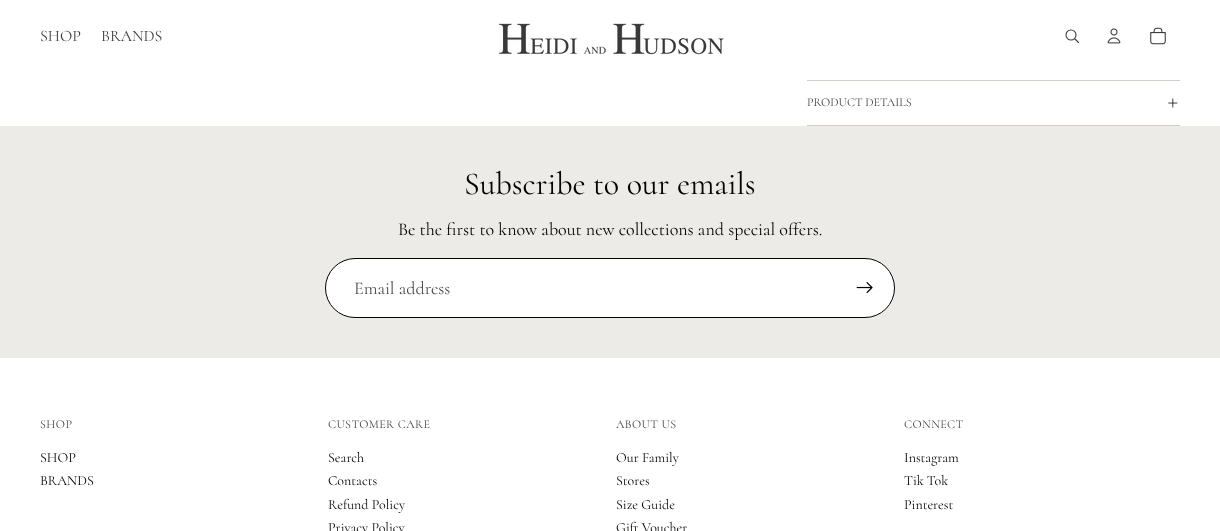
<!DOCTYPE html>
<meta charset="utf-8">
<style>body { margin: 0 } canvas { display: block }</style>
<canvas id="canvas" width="1220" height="531"></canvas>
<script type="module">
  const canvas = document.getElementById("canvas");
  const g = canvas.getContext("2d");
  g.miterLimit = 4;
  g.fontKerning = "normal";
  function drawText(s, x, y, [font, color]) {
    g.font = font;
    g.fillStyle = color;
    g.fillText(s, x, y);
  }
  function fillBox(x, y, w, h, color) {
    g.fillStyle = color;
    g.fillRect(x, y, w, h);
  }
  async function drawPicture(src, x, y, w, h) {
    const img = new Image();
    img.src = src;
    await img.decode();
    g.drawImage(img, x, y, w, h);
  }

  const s1 = ["16px Cormorant", "#3F3F3F"];
  const s2 = ["12px Cormorant", "#3F3F3F"];
  const s3 = ["32px Cormorant", "#030302"];
  const s4 = ["18px Cormorant", "#030302"];
  const s5 = ["18px Cormorant", "#4D4D4D"];
  const s6 = ["14px Cormorant", "#030302"];

  fillBox(0, 0, 1220, 531, "#FFFFFF");
  drawText("SHOP", 40, 41, s1);
  drawText("BRANDS", 101, 41, s1);
  await drawPicture("pic1.png", 498, 23, 226, 32);
  g.beginPath();
  g.arc(1071, 35, 5, 0, Math.PI * 2);
  g.strokeStyle = "#3F3F3F";
  g.lineWidth = 1.1;
  g.stroke();
  g.beginPath();
  g.moveTo(1075, 39);
  g.lineTo(1078.5, 42.5);
  g.lineCap = "round";
  g.lineJoin = "round";
  g.stroke();
  await drawPicture("pic2.png", 1107, 28, 14, 16);
  await drawPicture("pic3.png", 1150, 27, 16, 18);
  fillBox(807, 80, 373, 1, "#D3CEC5");
  fillBox(807, 125, 373, 1, "#D3CEC5");
  drawText("PRODUCT DETAILS", 807, 106, s2);
  await drawPicture("pic4.png", 1168, 98, 10, 10);
  fillBox(0, 126, 1220, 232, "#EDEBE7");
  drawText("Subscribe to our emails", 464, 194, s3);
  drawText("Be the first to know about new collections and special offers.", 398, 235, s4);
  g.fillStyle = "#FFFFFF";
  g.beginPath();
  g.roundRect(325.5, 258.5, 569, 59, 29.5);
  g.fill();
  g.strokeStyle = "#000000";
  g.lineWidth = 1;
  g.lineJoin = "miter";
  g.stroke();
  drawText("Email address", 354, 294, s5);
  await drawPicture("pic5.png", 856, 282, 17, 11);
  g.letterSpacing = "0.4px";
  drawText("SHOP", 40, 428, s2);
  g.letterSpacing = "0px";
  drawText("SHOP", 40, 462, s6);
  drawText("BRANDS", 40, 485, s6);
  g.letterSpacing = "0.4px";
  drawText("CUSTOMER CARE", 328, 428, s2);
  g.letterSpacing = "0px";
  drawText("Search", 328, 462, s6);
  drawText("Contacts", 328, 485, s6);
  drawText("Refund Policy", 328, 509, s6);
  drawText("Privacy Policy", 328, 532, s6);
  g.letterSpacing = "0.4px";
  drawText("ABOUT US", 616, 428, s2);
  g.letterSpacing = "0px";
  drawText("Our Family", 616, 462, s6);
  drawText("Stores", 616, 485, s6);
  drawText("Size Guide", 616, 509, s6);
  drawText("Gift Voucher", 616, 532, s6);
  g.letterSpacing = "0.4px";
  drawText("CONNECT", 904, 428, s2);
  g.letterSpacing = "0px";
  drawText("Instagram", 904, 462, s6);
  drawText("Tik Tok", 904, 485, s6);
  drawText("Pinterest", 904, 509, s6);
</script>
